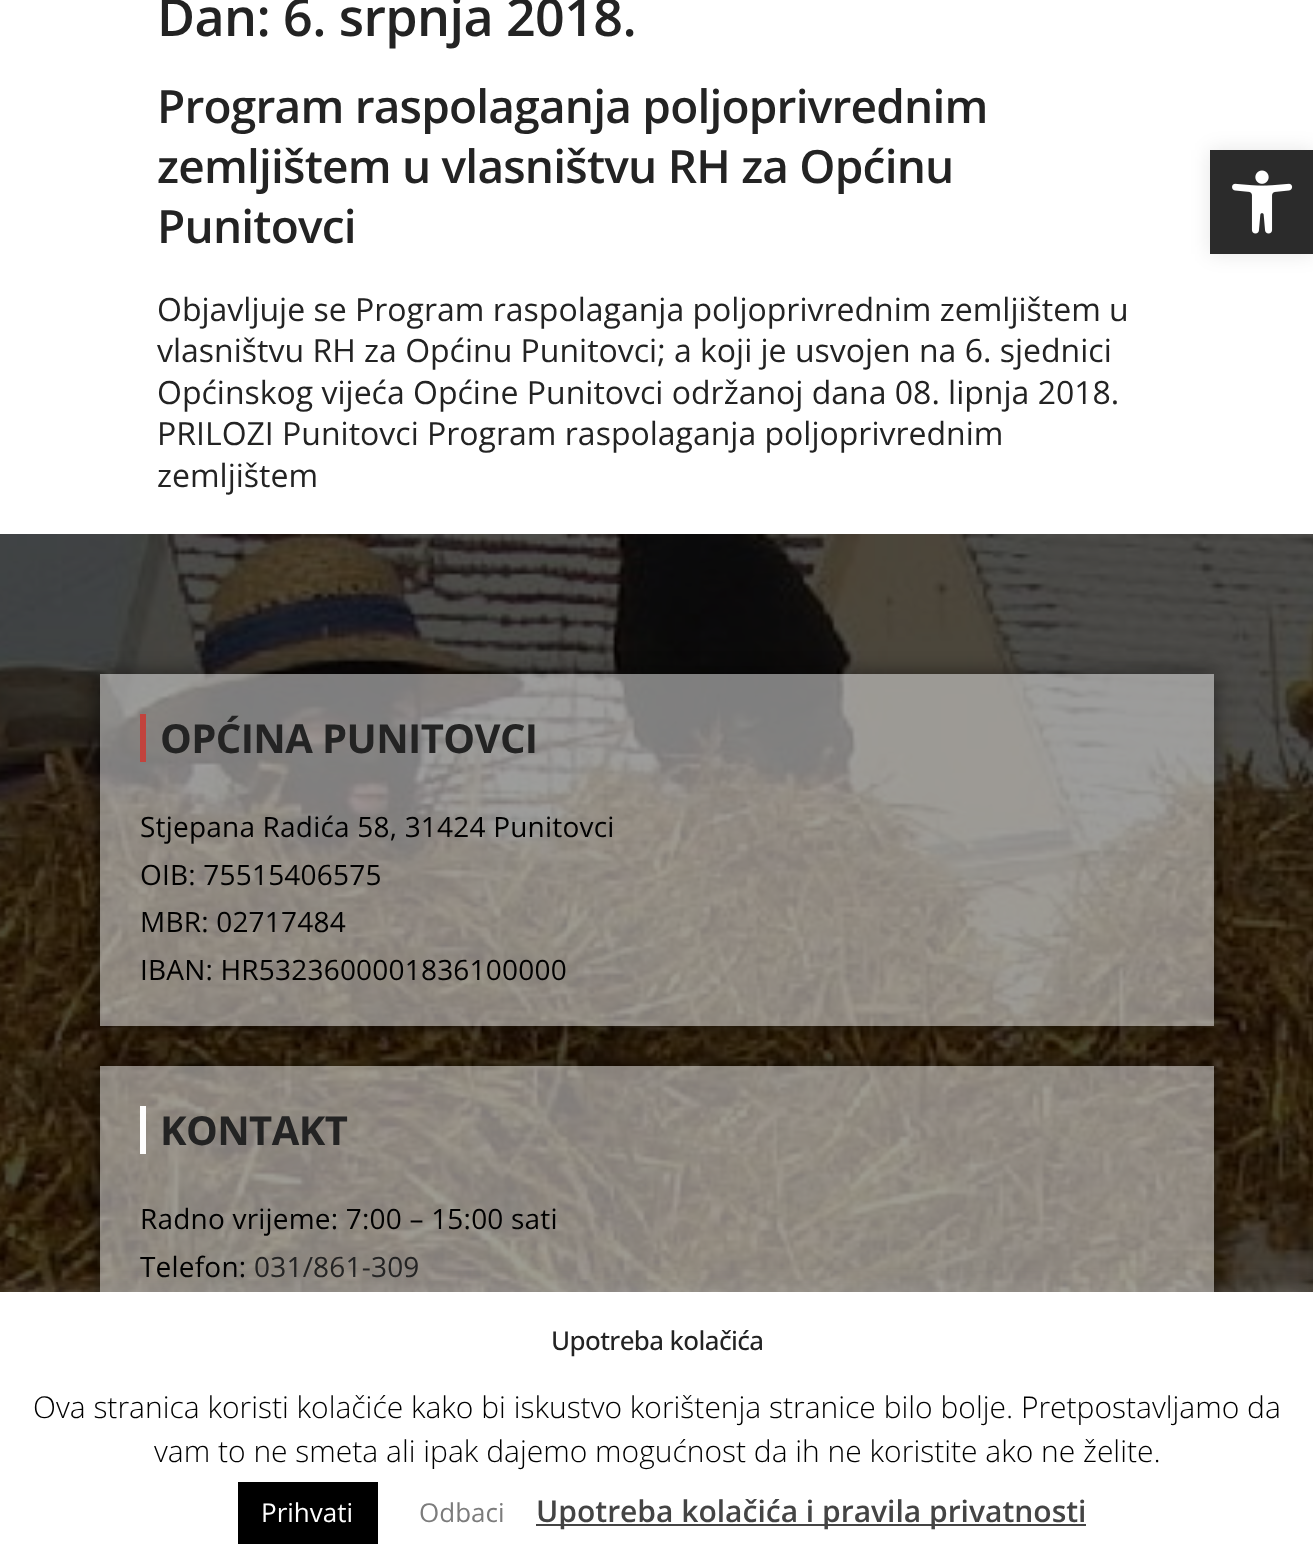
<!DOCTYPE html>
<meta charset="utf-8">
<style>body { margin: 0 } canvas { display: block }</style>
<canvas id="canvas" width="1313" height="1568"></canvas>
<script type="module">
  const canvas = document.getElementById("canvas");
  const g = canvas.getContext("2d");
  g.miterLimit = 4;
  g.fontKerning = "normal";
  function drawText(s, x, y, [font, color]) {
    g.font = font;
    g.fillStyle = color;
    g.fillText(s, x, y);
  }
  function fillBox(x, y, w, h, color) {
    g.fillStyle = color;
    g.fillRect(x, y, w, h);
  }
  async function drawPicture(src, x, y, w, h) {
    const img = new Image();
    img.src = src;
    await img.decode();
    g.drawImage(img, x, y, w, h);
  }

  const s1 = ["600 52px Open Sans", "#232323"];
  const s2 = ["600 46px Open Sans", "#232323"];
  const s3 = ["32px Open Sans", "#232323"];
  const s4 = ["bold 40px Open Sans", "#232323"];
  const s5 = ["28px Open Sans", "#000000"];
  const s6 = ["28px Open Sans", "#232323"];
  const s7 = ["500 26px Open Sans", "#232323"];
  const s8 = ["300 30px Open Sans", "#000000"];
  const s9 = ["26px Open Sans", "#FFFFFF"];
  const s10 = ["26px Open Sans", "#7C7C7C"];
  const s11 = ["600 30px Open Sans", "#444444"];

  fillBox(0, 0, 1313, 1568, "#FFFFFF");
  g.letterSpacing = "-0.6px";
  drawText("Dan: 6. srpnja 2018.", 157, 36, s1);
  g.letterSpacing = "-0.8px";
  drawText("Program raspolaganja poljoprivrednim", 157, 123, s2);
  drawText("zemljištem u vlasništvu RH za Općinu", 157, 183, s2);
  drawText("Punitovci", 157, 243, s2);
  g.letterSpacing = "0px";
  drawText("Objavljuje se Program raspolaganja poljoprivrednim zemljištem u", 157, 321, s3);
  drawText("vlasništvu RH za Općinu Punitovci; a koji je usvojen na 6. sjednici", 157, 362, s3);
  drawText("Općinskog vijeća Općine Punitovci održanoj dana 08. lipnja 2018.", 157, 404, s3);
  drawText("PRILOZI Punitovci Program raspolaganja poljoprivrednim", 157, 445, s3);
  drawText("zemljištem", 157, 487, s3);
  g.fillStyle = "rgba(0, 0, 0, 0.1)";
  g.filter = "blur(10px)";
  g.beginPath();
  g.rect(1210, 150, 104, 104);
  g.fill();
  g.filter = "none";
  fillBox(1210, 150, 103, 104, "#2B2B2B");
  await drawPicture("pic1.png", 1232, 170, 61, 64);
  await drawPicture("pic2.png", 0, 534, 1313, 758);
  g.save();
  g.beginPath();
  g.moveTo(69, 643);
  g.lineTo(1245, 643);
  g.lineTo(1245, 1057);
  g.lineTo(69, 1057);
  g.closePath();
  g.moveTo(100, 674);
  g.lineTo(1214, 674);
  g.lineTo(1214, 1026);
  g.lineTo(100, 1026);
  g.closePath();
  g.clip("evenodd");
  g.fillStyle = "rgba(0, 0, 0, 0.5)";
  g.filter = "blur(10px)";
  g.beginPath();
  g.rect(100, 674, 1114, 352);
  g.fill();
  g.filter = "none";
  g.restore();
  fillBox(100, 674, 1114, 352, "rgba(224, 224, 224, 0.55)");
  fillBox(140, 714, 6, 48, "#C2433D");
  g.letterSpacing = "-0.6px";
  drawText("OPĆINA PUNITOVCI", 160, 753, s4);
  g.letterSpacing = "0.2px";
  drawText("Stjepana Radića 58, 31424 Punitovci", 140, 837, s5);
  drawText("OIB: 75515406575", 140, 885, s5);
  drawText("MBR: 02717484", 140, 932, s5);
  drawText("IBAN: HR5323600001836100000", 140, 980, s5);
  g.save();
  g.beginPath();
  g.moveTo(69, 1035);
  g.lineTo(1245, 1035);
  g.lineTo(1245, 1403);
  g.lineTo(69, 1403);
  g.closePath();
  g.moveTo(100, 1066);
  g.lineTo(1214, 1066);
  g.lineTo(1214, 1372);
  g.lineTo(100, 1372);
  g.closePath();
  g.clip("evenodd");
  g.fillStyle = "rgba(0, 0, 0, 0.5)";
  g.filter = "blur(10px)";
  g.beginPath();
  g.rect(100, 1066, 1114, 306);
  g.fill();
  g.filter = "none";
  g.restore();
  fillBox(100, 1066, 1114, 226, "rgba(224, 224, 224, 0.55)");
  fillBox(140, 1106, 6, 48, "#FEFEFE");
  g.letterSpacing = "-0.6px";
  drawText("KONTAKT", 160, 1145, s4);
  g.letterSpacing = "0.2px";
  drawText("Radno vrijeme: 7:00 – 15:00 sati", 140, 1229, s5);
  drawText("Telefon:", 140, 1277, s5);
  drawText("031/861-309", 254, 1277, s6);
  g.fillStyle = "rgba(172, 171, 171, 0.3)";
  g.filter = "blur(10px)";
  g.beginPath();
  g.rect(0, 1290, 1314, 276);
  g.fill();
  g.filter = "none";
  fillBox(0, 1292, 1313, 276, "#FFFFFF");
  g.letterSpacing = "-0.6px";
  drawText("Upotreba kolačića", 551, 1350, s7);
  g.letterSpacing = "0px";
  drawText("Ova stranica koristi kolačiće kako bi iskustvo korištenja stranice bilo bolje. Pretpostavljamo da", 33, 1418, s8);
  drawText("vam to ne smeta ali ipak dajemo mogućnost da ih ne koristite ako ne želite.", 154, 1462, s8);
  fillBox(238, 1482, 140, 62, "#000000");
  drawText("Prihvati", 261, 1522, s9);
  drawText("Odbaci", 419, 1522, s10);
  fillBox(536, 1524, 550, 2, "#444444");
  drawText("Upotreba kolačića i pravila privatnosti", 536, 1522, s11);
</script>
